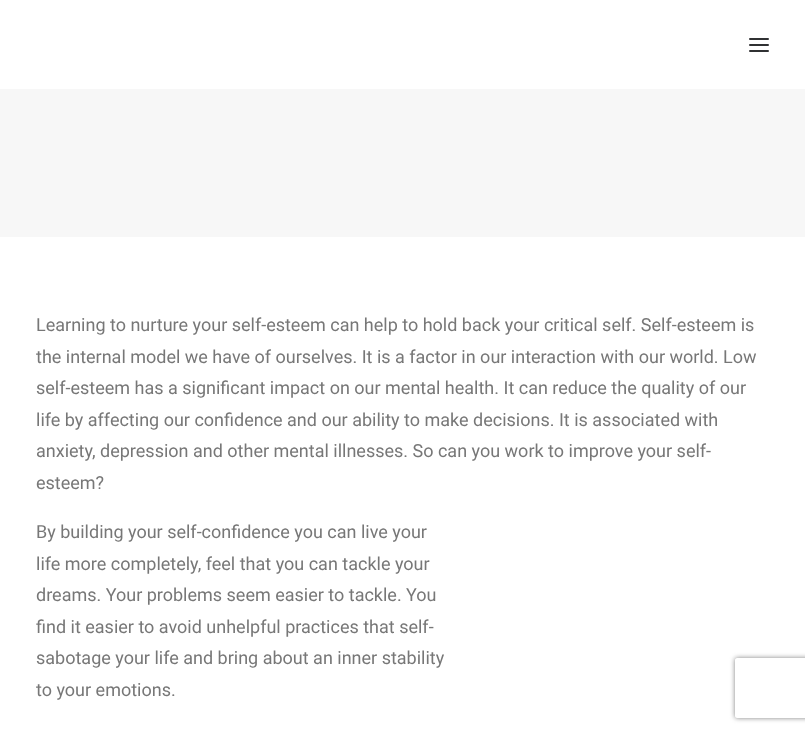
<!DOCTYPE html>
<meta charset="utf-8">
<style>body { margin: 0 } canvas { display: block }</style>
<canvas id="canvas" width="805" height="732"></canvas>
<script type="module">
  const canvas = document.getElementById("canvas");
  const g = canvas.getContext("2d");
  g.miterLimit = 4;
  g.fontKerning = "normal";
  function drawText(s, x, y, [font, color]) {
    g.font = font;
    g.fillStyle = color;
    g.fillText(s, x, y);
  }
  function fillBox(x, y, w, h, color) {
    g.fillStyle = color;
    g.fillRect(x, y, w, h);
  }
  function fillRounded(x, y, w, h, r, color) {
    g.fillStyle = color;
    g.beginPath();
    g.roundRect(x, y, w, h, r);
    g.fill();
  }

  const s1 = ["18px Roboto", "#777777"];

  fillBox(0, 0, 805, 732, "#F7F7F7");
  fillBox(0, 0, 805, 89, "#FFFFFF");
  fillRounded(749, 44, 20, 2, 1, "#303133");
  fillRounded(749, 38, 20, 2, 1, "#303133");
  fillRounded(749, 50, 20, 2, 1, "#303133");
  fillBox(0, 237, 805, 495, "#FFFFFF");
  drawText("Learning to nurture your self-esteem can help to hold back your critical self. Self-esteem is", 36, 331, s1);
  drawText("the internal model we have of ourselves. It is a factor in our interaction with our world. Low", 36, 363, s1);
  drawText("self-esteem has a significant impact on our mental health. It can reduce the quality of our", 36, 394, s1);
  drawText("life by affecting our confidence and our ability to make decisions. It is associated with", 36, 426, s1);
  drawText("anxiety, depression and other mental illnesses. So can you work to improve your self-", 36, 457, s1);
  drawText("esteem?", 36, 489, s1);
  drawText("By building your self-confidence you can live your", 36, 538, s1);
  drawText("life more completely, feel that you can tackle your", 36, 570, s1);
  drawText("dreams. Your problems seem easier to tackle. You", 36, 601, s1);
  drawText("find it easier to avoid unhelpful practices that self-", 36, 633, s1);
  drawText("sabotage your life and bring about an inner stability", 36, 664, s1);
  drawText("to your emotions.", 36, 696, s1);
  g.save();
  g.beginPath();
  g.moveTo(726, 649);
  g.lineTo(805, 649);
  g.lineTo(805, 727);
  g.lineTo(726, 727);
  g.closePath();
  g.moveTo(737, 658);
  g.lineTo(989, 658);
  g.bezierCurveTo(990, 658, 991, 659, 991, 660);
  g.lineTo(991, 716);
  g.bezierCurveTo(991, 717, 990, 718, 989, 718);
  g.lineTo(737, 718);
  g.bezierCurveTo(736, 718, 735, 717, 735, 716);
  g.lineTo(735, 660);
  g.bezierCurveTo(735, 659, 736, 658, 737, 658);
  g.closePath();
  g.clip("evenodd");
  g.fillStyle = "#808080";
  g.filter = "blur(2.5px)";
  g.beginPath();
  g.roundRect(735, 658, 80, 60, 2);
  g.fill();
  g.filter = "none";
  g.restore();
</script>
